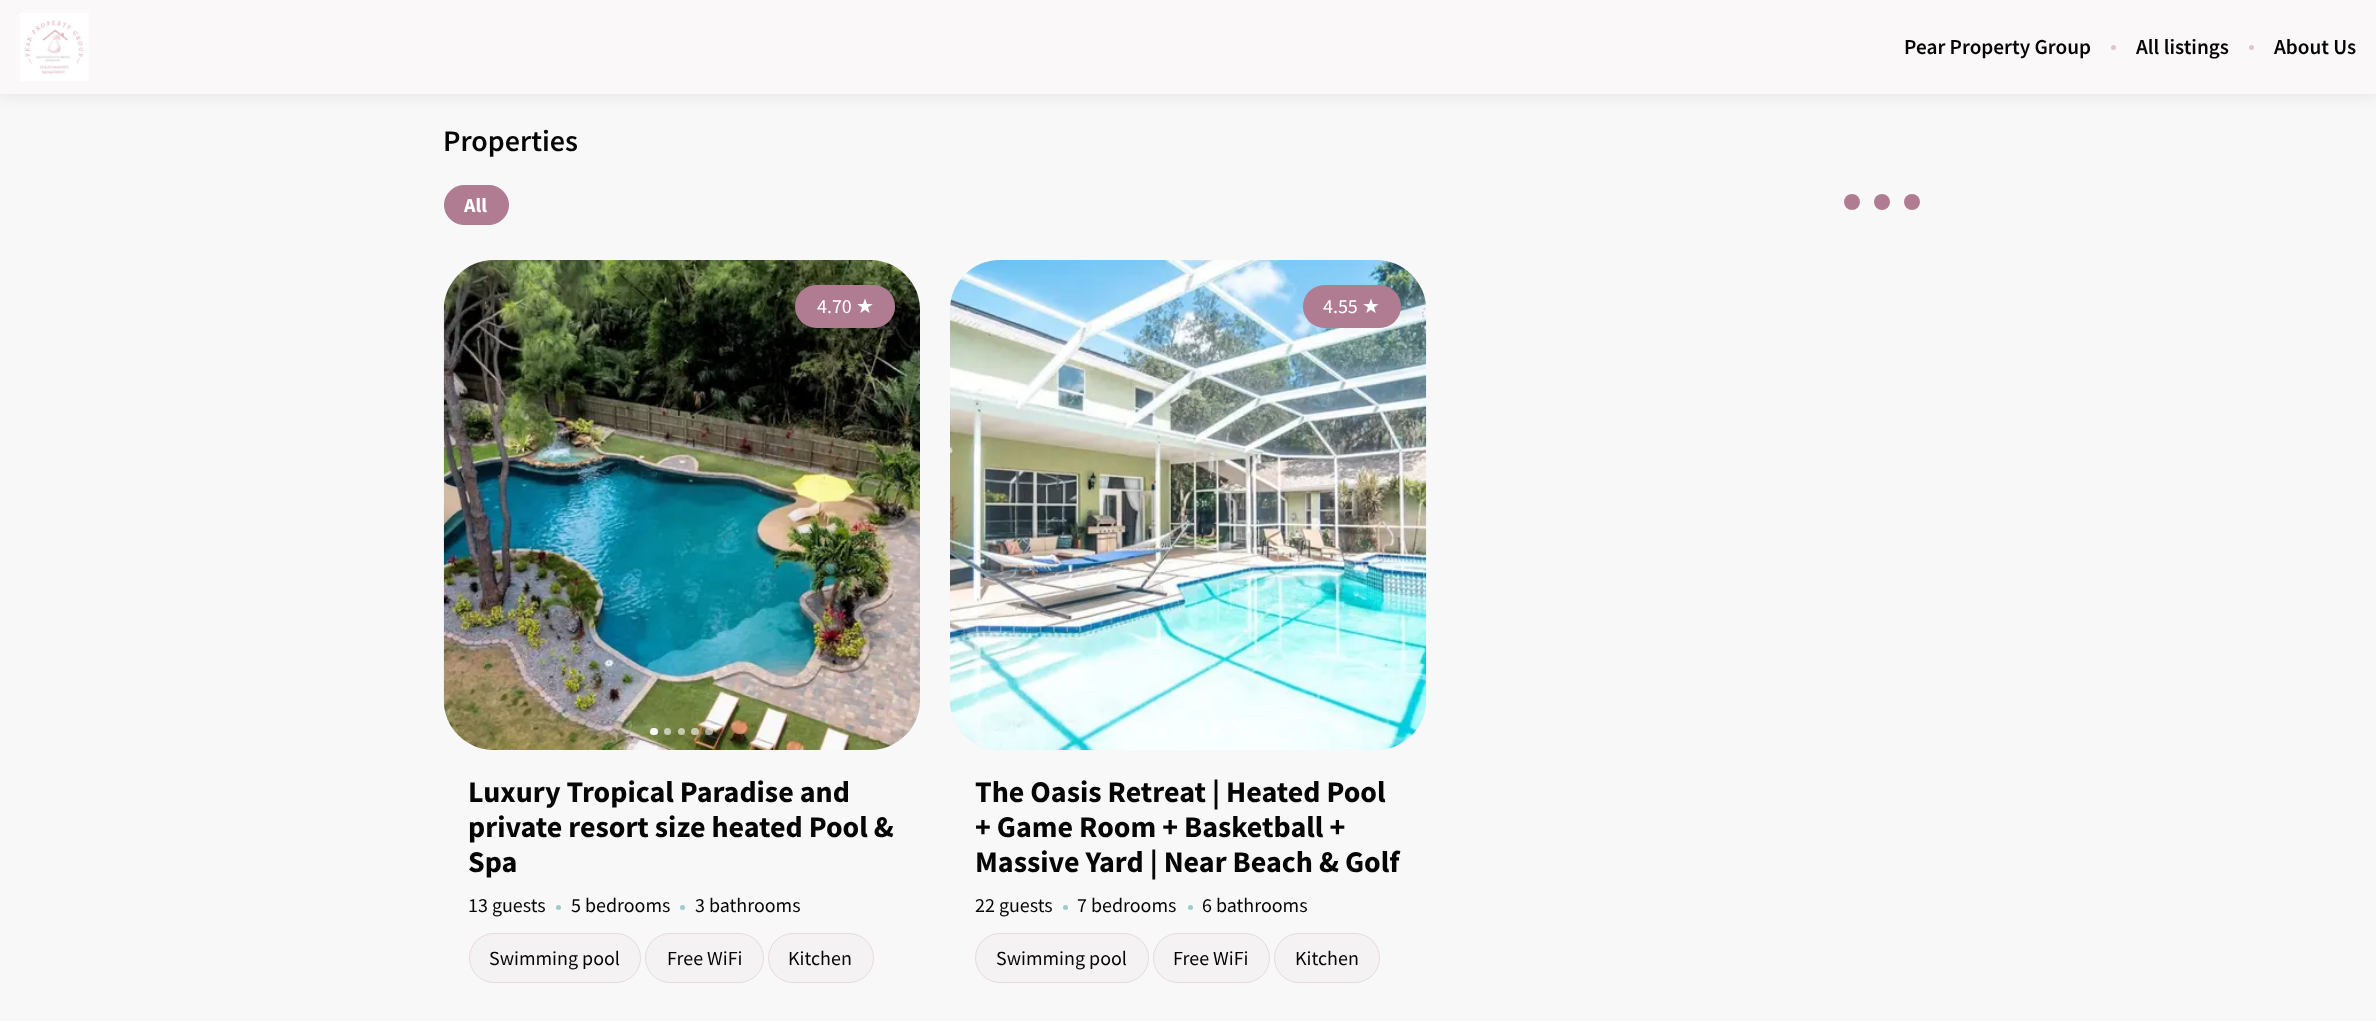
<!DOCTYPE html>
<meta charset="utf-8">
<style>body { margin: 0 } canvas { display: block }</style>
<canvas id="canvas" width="2376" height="1021"></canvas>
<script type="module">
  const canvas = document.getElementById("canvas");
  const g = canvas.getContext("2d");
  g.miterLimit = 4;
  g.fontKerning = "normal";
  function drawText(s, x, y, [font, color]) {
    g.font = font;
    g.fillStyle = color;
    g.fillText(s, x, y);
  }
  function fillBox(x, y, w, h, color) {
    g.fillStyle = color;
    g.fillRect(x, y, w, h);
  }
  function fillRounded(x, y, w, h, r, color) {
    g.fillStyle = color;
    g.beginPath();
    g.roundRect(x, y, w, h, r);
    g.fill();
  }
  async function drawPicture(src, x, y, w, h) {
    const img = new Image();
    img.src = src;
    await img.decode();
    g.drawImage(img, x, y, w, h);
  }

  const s1 = ["600 21.25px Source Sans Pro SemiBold", "#050505"];
  const s2 = ["600 30px Source Sans Pro SemiBold", "#050505"];
  const s3 = ["bold 20px Source Sans Pro", "#FFFFFF"];
  const s4 = ["20px Source Sans Pro", "#FFFFFF"];
  const s5 = ["20px DejaVu Sans", "#FFFFFF"];
  const s6 = ["bold 30px Source Sans Pro", "#050505"];
  const s7 = ["20px Source Sans Pro", "#050505"];

  fillBox(0, 0, 2376, 1021, "#F8F8F8");
  g.fillStyle = "rgba(0, 0, 0, 0.08)";
  g.filter = "blur(7.5px)";
  g.beginPath();
  g.rect(0, 3, 2376, 93);
  g.fill();
  g.filter = "none";
  fillBox(0, 0, 2376, 94, "#FAF8F8");
  await drawPicture("pic1.png", 20, 13, 69, 68);
  drawText("Pear Property Group", 1904, 54, s1);
  g.fillStyle = "#DCC6CF";
  g.beginPath();
  g.arc(2113.5, 47.5, 2.5, 0, Math.PI * 2);
  g.fill();
  drawText("All listings", 2136, 54, s1);
  g.fillStyle = "#DCC6CF";
  g.beginPath();
  g.arc(2251.5, 47.5, 2.5, 0, Math.PI * 2);
  g.fill();
  drawText("About Us", 2274, 54, s1);
  drawText("Properties", 443, 151, s2);
  g.fillStyle = "#B07C92";
  g.beginPath();
  g.roundRect(444.5, 185.5, 64, 39, 19.5);
  g.fill();
  g.strokeStyle = "#B07C92";
  g.stroke();
  drawText("All", 464, 212, s3);
  g.fillStyle = "#B07C92";
  g.beginPath();
  g.arc(1852, 202, 8, 0, Math.PI * 2);
  g.fill();
  g.beginPath();
  g.arc(1882, 202, 8, 0, Math.PI * 2);
  g.fill();
  g.beginPath();
  g.arc(1912, 202, 8, 0, Math.PI * 2);
  g.fill();
  fillRounded(444, 260, 476, 490, 50, "#E0E0E0");
  await drawPicture("pic2.png", 443, 260, 477, 490);
  fillRounded(795, 285, 100, 43, 21.5, "#B07C92");
  g.beginPath();
  g.roundRect(795.5, 285.5, 99, 42, 21);
  g.strokeStyle = "rgba(176, 124, 146, 0.2)";
  g.stroke();
  drawText("4.70", 817, 313, s4);
  drawText("★", 856, 313, s5);
  fillRounded(650, 728, 8, 7, 3.5, "#FFFFFF");
  g.fillStyle = "rgba(255, 255, 255, 0.6)";
  g.beginPath();
  g.arc(667.5, 731.5, 3.5, 0, Math.PI * 2);
  g.fill();
  g.beginPath();
  g.arc(681.5, 731.5, 3.5, 0, Math.PI * 2);
  g.fill();
  fillRounded(691, 728, 8, 7, 3.5, "rgba(255, 255, 255, 0.6)");
  fillRounded(705, 728, 8, 7, 3.5, "rgba(255, 255, 255, 0.6)");
  drawText("Luxury Tropical Paradise and", 468, 802, s6);
  drawText("private resort size heated Pool &", 468, 837, s6);
  drawText("Spa", 468, 872, s6);
  drawText("13 guests", 468, 912, s7);
  g.fillStyle = "#9ACDCD";
  g.beginPath();
  g.arc(558.5, 907.5, 2.5, 0, Math.PI * 2);
  g.fill();
  drawText("5 bedrooms", 571, 912, s7);
  g.fillStyle = "#9ACDCD";
  g.beginPath();
  g.arc(682.5, 907.5, 2.5, 0, Math.PI * 2);
  g.fill();
  drawText("3 bathrooms", 695, 912, s7);
  fillRounded(469, 933, 172, 50, 25, "#F4F2F3");
  g.beginPath();
  g.roundRect(469.5, 933.5, 171, 49, 24.5);
  g.stroke();
  drawText("Swimming pool", 489, 965, s7);
  fillRounded(645, 933, 119, 50, 25, "#F4F2F3");
  g.beginPath();
  g.roundRect(645.5, 933.5, 118, 49, 24.5);
  g.stroke();
  drawText("Free WiFi", 667, 965, s7);
  fillRounded(768, 933, 106, 50, 25, "#F4F2F3");
  g.beginPath();
  g.roundRect(768.5, 933.5, 105, 49, 24.5);
  g.stroke();
  drawText("Kitchen", 788, 965, s7);
  fillRounded(950, 260, 476, 490, 50, "#E0E0E0");
  await drawPicture("pic3.png", 950, 260, 477, 490);
  fillRounded(1303, 285, 98, 43, 21.5, "#B07C92");
  g.beginPath();
  g.roundRect(1303.5, 285.5, 97, 42, 21);
  g.stroke();
  drawText("4.55", 1323, 313, s4);
  drawText("★", 1362, 313, s5);
  fillRounded(1156, 728, 8, 7, 3.5, "#FFFFFF");
  fillRounded(1170, 728, 8, 7, 3.5, "#FCFFFF");
  g.beginPath();
  g.arc(1187.5, 731.5, 3.5, 0, Math.PI * 2);
  g.fill();
  g.beginPath();
  g.arc(1201.5, 731.5, 3.5, 0, Math.PI * 2);
  g.fill();
  fillRounded(1211, 728, 8, 7, 3.5, "#FCFFFF");
  drawText("The Oasis Retreat | Heated Pool", 975, 802, s6);
  drawText("+ Game Room + Basketball +", 975, 837, s6);
  drawText("Massive Yard | Near Beach & Golf", 975, 872, s6);
  drawText("22 guests", 975, 912, s7);
  g.fillStyle = "#9ACDCD";
  g.beginPath();
  g.arc(1065.5, 907.5, 2.5, 0, Math.PI * 2);
  g.fill();
  drawText("7 bedrooms", 1077, 912, s7);
  g.fillStyle = "#9ACDCD";
  g.beginPath();
  g.arc(1190.5, 907.5, 2.5, 0, Math.PI * 2);
  g.fill();
  drawText("6 bathrooms", 1202, 912, s7);
  fillRounded(975, 933, 174, 50, 25, "#F4F2F3");
  g.beginPath();
  g.roundRect(975.5, 933.5, 173, 49, 24.5);
  g.stroke();
  drawText("Swimming pool", 996, 965, s7);
  fillRounded(1153, 933, 117, 50, 25, "#F4F2F3");
  g.beginPath();
  g.roundRect(1153.5, 933.5, 116, 49, 24.5);
  g.stroke();
  drawText("Free WiFi", 1173, 965, s7);
  fillRounded(1274, 933, 106, 50, 25, "#F4F2F3");
  g.beginPath();
  g.roundRect(1274.5, 933.5, 105, 49, 24.5);
  g.stroke();
  drawText("Kitchen", 1295, 965, s7);
</script>
